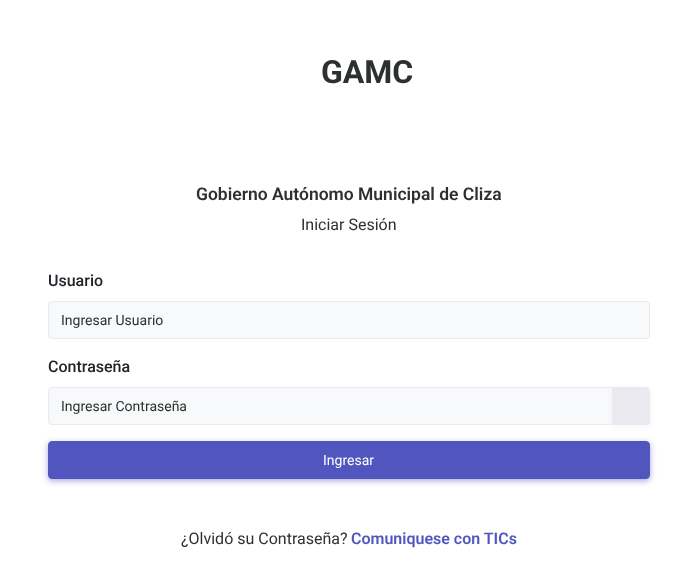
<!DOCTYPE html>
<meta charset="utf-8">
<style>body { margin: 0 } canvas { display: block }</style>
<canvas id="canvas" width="698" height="577"></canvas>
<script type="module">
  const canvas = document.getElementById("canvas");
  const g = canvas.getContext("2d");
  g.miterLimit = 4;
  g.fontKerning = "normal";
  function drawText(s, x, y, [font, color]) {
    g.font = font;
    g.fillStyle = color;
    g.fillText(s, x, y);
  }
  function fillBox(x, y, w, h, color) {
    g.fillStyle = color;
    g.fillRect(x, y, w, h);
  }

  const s1 = ["bold 32px Roboto", "#2C302E"];
  const s2 = ["600 17.5px Roboto", "#2C302E"];
  const s3 = ["16px Roboto", "#2C302E"];
  const s4 = ["500 16px Roboto", "#212529"];
  const s5 = ["14px Roboto", "#2C302E"];
  const s6 = ["14px Roboto", "#FFFFFF"];
  const s7 = ["600 16px Roboto", "#5156BE"];

  fillBox(0, 0, 698, 577, "#FFFFFF");
  drawText("GAMC", 321, 83, s1);
  drawText("Gobierno Autónomo Municipal de Cliza", 196, 200, s2);
  drawText("Iniciar Sesión", 301, 230, s3);
  drawText("Usuario", 48, 286, s4);
  g.fillStyle = "#F8F9FA";
  g.beginPath();
  g.roundRect(48.5, 301.5, 601, 37, 3.5);
  g.fill();
  g.strokeStyle = "#E9E9EF";
  g.stroke();
  drawText("Ingresar Usuario", 61, 325, s5);
  drawText("Contraseña", 48, 372, s4);
  g.fillStyle = "#F8F9FA";
  g.beginPath();
  g.roundRect(48.5, 387.5, 564, 37, [3.5, 0, 0, 3.5]);
  g.fill();
  g.stroke();
  drawText("Ingresar Contraseña", 61, 411, s5);
  g.fillStyle = "rgba(233, 233, 239, 0.5)";
  g.filter = "blur(3px)";
  g.beginPath();
  g.roundRect(613, 389, 37, 38, 4);
  g.fill();
  g.filter = "none";
  g.fillStyle = "#E9E9EF";
  g.beginPath();
  g.roundRect(613.5, 387.5, 36, 37, [0, 3.5, 3.5, 0]);
  g.fill();
  g.stroke();
  g.fillStyle = "rgba(81, 86, 190, 0.5)";
  g.filter = "blur(3px)";
  g.beginPath();
  g.roundRect(48, 443, 602, 38, 4);
  g.fill();
  g.filter = "none";
  g.fillStyle = "#5156BE";
  g.beginPath();
  g.roundRect(48.5, 441.5, 601, 37, 3.5);
  g.fill();
  g.strokeStyle = "#5156BE";
  g.stroke();
  drawText("Ingresar", 323, 465, s6);
  drawText("¿Olvidó su Contraseña?", 181, 544, s3);
  drawText("Comuniquese con TICs", 351, 544, s7);
</script>
